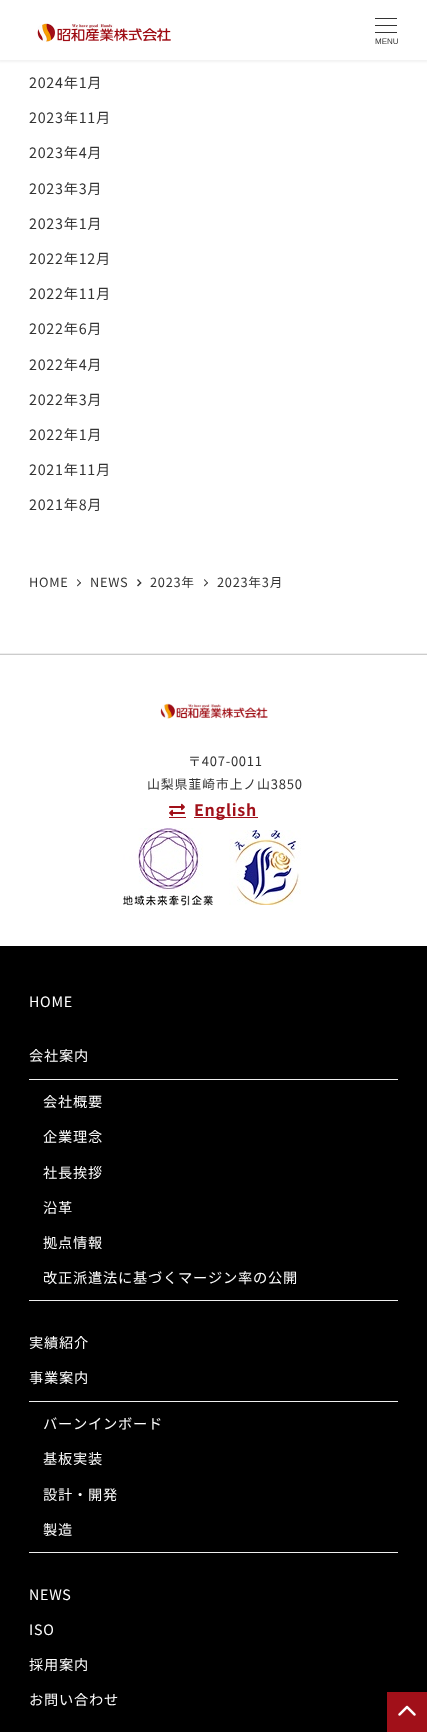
<!DOCTYPE html>
<meta charset="utf-8">
<style>body { margin: 0 } canvas { display: block }</style>
<canvas id="canvas" width="427" height="1732"></canvas>
<script type="module">
  const canvas = document.getElementById("canvas");
  const g = canvas.getContext("2d");
  g.miterLimit = 4;
  g.fontKerning = "normal";
  function drawText(s, x, y, [font, color]) {
    g.font = font;
    g.fillStyle = color;
    g.fillText(s, x, y);
  }
  function fillBox(x, y, w, h, color) {
    g.fillStyle = color;
    g.fillRect(x, y, w, h);
  }
  async function drawPicture(src, x, y, w, h) {
    const img = new Image();
    img.src = src;
    await img.decode();
    g.drawImage(img, x, y, w, h);
  }

  const s1 = ["8px Liberation Sans", "#333333"];
  const s2 = ["14.25px Noto Sans JP", "#333333"];
  const s3 = ["12.75px Noto Sans JP", "#333333"];
  const s4 = ["13px Noto Sans JP", "#333333"];
  const s5 = ["bold 16px Noto Sans JP", "#A11019"];
  const s6 = ["14.25px Noto Sans JP", "#FFFFFF"];

  fillBox(0, 0, 427, 1732, "#FFFFFF");
  g.fillStyle = "rgba(0, 0, 0, 0.05)";
  g.filter = "blur(1px)";
  g.beginPath();
  g.rect(-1, 0, 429, 62);
  g.fill();
  g.filter = "none";
  fillBox(0, 0, 427, 60, "#FFFFFF");
  await drawPicture("pic1.png", 37, 23, 134, 19);
  fillBox(375, 18, 22, 1, "#333333");
  fillBox(375, 25, 22, 1, "#333333");
  fillBox(375, 32, 22, 1, "#333333");
  drawText("MENU", 375, 44, s1);
  g.letterSpacing = "0.75px";
  drawText("2024年1月", 29, 88, s2);
  drawText("2023年11月", 29, 123, s2);
  drawText("2023年4月", 29, 158, s2);
  drawText("2023年3月", 29, 194, s2);
  drawText("2023年1月", 29, 229, s2);
  drawText("2022年12月", 29, 264, s2);
  drawText("2022年11月", 29, 299, s2);
  drawText("2022年6月", 29, 334, s2);
  drawText("2022年4月", 29, 370, s2);
  drawText("2022年3月", 29, 405, s2);
  drawText("2022年1月", 29, 440, s2);
  drawText("2021年11月", 29, 475, s2);
  drawText("2021年8月", 29, 510, s2);
  drawText("HOME", 29, 587, s3);
  g.beginPath();
  g.moveTo(77.5, 579);
  g.lineTo(81, 583);
  g.lineTo(80.5, 583.5);
  g.lineTo(77, 580);
  g.closePath();
  g.fill();
  g.beginPath();
  g.moveTo(80.5, 582);
  g.lineTo(81, 583);
  g.lineTo(77.5, 586.5);
  g.lineTo(77, 585.5);
  g.closePath();
  g.fill();
  drawText("NEWS", 90, 587, s3);
  g.beginPath();
  g.moveTo(138, 579);
  g.lineTo(141.5, 583);
  g.lineTo(140.5, 583.5);
  g.lineTo(137, 580);
  g.closePath();
  g.fill();
  g.beginPath();
  g.moveTo(140.5, 582);
  g.lineTo(141.5, 583);
  g.lineTo(138, 586.5);
  g.lineTo(137, 585.5);
  g.closePath();
  g.fill();
  drawText("2023年", 150, 587, s3);
  g.beginPath();
  g.moveTo(204.5, 579);
  g.lineTo(208, 583);
  g.lineTo(207.5, 583.5);
  g.lineTo(204, 580);
  g.closePath();
  g.fill();
  g.beginPath();
  g.moveTo(207.5, 582);
  g.lineTo(208, 583);
  g.lineTo(204.5, 586.5);
  g.lineTo(204, 585.5);
  g.closePath();
  g.fill();
  drawText("2023年3月", 217, 587, s3);
  fillBox(0, 653, 427, 1, "#EEEEEE");
  fillBox(0, 654, 427, 1, "#CCCCCC");
  await drawPicture("pic2.png", 160, 703, 108, 16);
  drawText("〒407-0011", 188, 766, s4);
  drawText("山梨県韮崎市上ノ山3850", 147, 789, s4);
  await drawPicture("pic3.png", 169, 803, 16, 14);
  fillBox(194, 817, 64, 1, "#A11019");
  drawText("English", 194, 816, s5);
  fillBox(169, 817, 17, 1, "#A11019");
  await drawPicture("pic4.png", 123, 828, 90, 78);
  await drawPicture("pic5.png", 229, 830, 72, 75);
  fillBox(0, 946, 427, 786, "#000000");
  drawText("HOME", 29, 1007, s6);
  drawText("会社案内", 29, 1061, s6);
  fillBox(29, 1079, 369, 1, "#EEEEEE");
  fillBox(29, 1300, 369, 1, "#EEEEEE");
  drawText("会社概要", 43, 1107, s6);
  drawText("企業理念", 43, 1142, s6);
  drawText("社長挨拶", 43, 1178, s6);
  drawText("沿革", 43, 1213, s6);
  drawText("拠点情報", 43, 1248, s6);
  drawText("改正派遣法に基づくマージン率の公開", 43, 1283, s6);
  drawText("実績紹介", 29, 1348, s6);
  drawText("事業案内", 29, 1383, s6);
  fillBox(29, 1401, 369, 1, "#EEEEEE");
  fillBox(29, 1552, 369, 1, "#EEEEEE");
  drawText("バーンインボード", 43, 1429, s6);
  drawText("基板実装", 43, 1464, s6);
  drawText("設計・開発", 43, 1500, s6);
  drawText("製造", 43, 1535, s6);
  drawText("NEWS", 29, 1600, s6);
  drawText("ISO", 29, 1635, s6);
  drawText("採用案内", 29, 1670, s6);
  drawText("お問い合わせ", 29, 1705, s6);
  fillBox(387, 1692, 40, 40, "#A11019");
  await drawPicture("pic6.png", 398, 1705, 18, 11);
</script>
